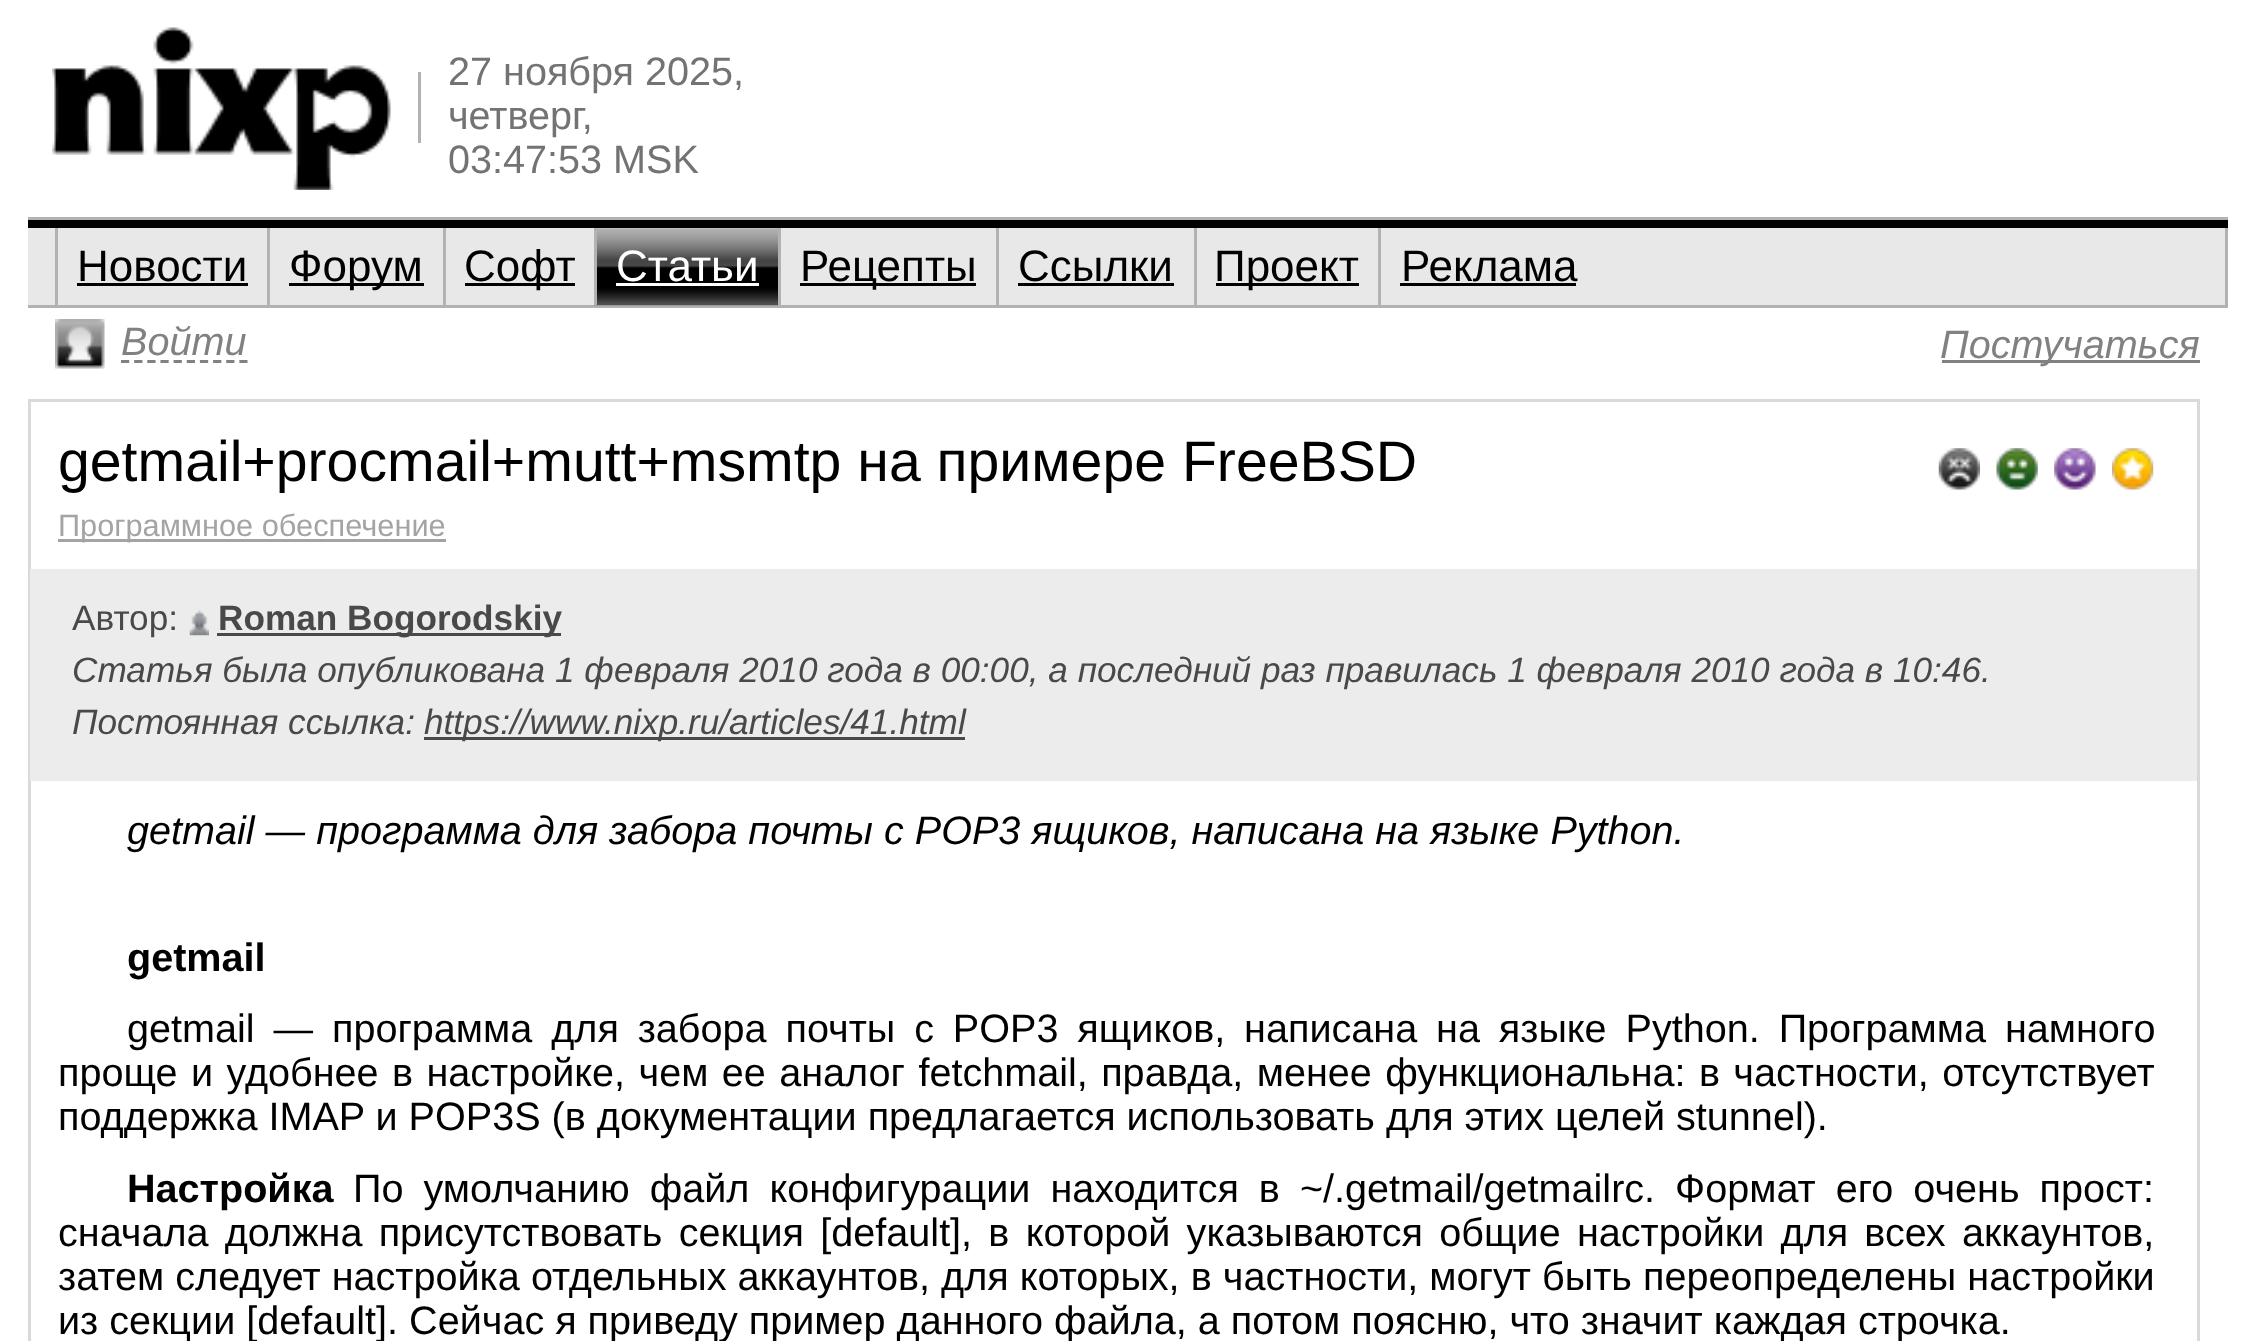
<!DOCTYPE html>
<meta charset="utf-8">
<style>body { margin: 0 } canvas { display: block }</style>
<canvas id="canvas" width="2255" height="1341"></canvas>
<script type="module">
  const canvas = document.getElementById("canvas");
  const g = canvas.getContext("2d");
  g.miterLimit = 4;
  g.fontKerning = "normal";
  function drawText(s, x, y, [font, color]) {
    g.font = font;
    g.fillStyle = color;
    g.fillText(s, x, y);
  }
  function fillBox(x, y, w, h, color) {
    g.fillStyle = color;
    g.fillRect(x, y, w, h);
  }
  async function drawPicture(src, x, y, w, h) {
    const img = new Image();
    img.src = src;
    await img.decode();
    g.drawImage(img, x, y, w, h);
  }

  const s1 = ["39.6px Liberation Sans", "#737373"];
  const s2 = ["44px Liberation Sans", "#000000"];
  const s3 = ["44px Liberation Sans", "#FFFFFF"];
  const s4 = ["italic 39.6px Liberation Sans", "#818181"];
  const s5 = ["57.2px Liberation Sans", "#000000"];
  const s6 = ["30.75px Liberation Sans", "#A4A4A4"];
  const s7 = ["35.2px Liberation Sans", "#494949"];
  const s8 = ["bold 35.2px Liberation Sans", "#494949"];
  const s9 = ["italic 35.2px Liberation Sans", "#494949"];
  const s10 = ["italic 39.6px Liberation Sans", "#000000"];
  const s11 = ["bold 39.6px Liberation Sans", "#000000"];
  const s12 = ["39.6px Liberation Sans", "#000000"];

  fillBox(0, 0, 2255, 1341, "#FFFFFF");
  fillBox(28, 217, 2200, 3, "#B2B2B2");
  await drawPicture("pic1.png", 52, 27, 339, 163);
  fillBox(418, 72, 3, 71, "#B2B2B2");
  drawText("27 ноября 2025,", 448, 85, s1);
  drawText("четверг,", 448, 129, s1);
  drawText("03:47:53 MSK", 448, 173, s1);
  fillBox(28, 228, 2197, 77, "#E8E8E8");
  fillBox(28, 220, 2200, 8, "#000000");
  fillBox(28, 305, 2200, 3, "#B2B2B2");
  fillBox(2225, 228, 3, 77, "#B2B2B2");
  fillBox(55, 228, 3, 77, "#B2B2B2");
  drawText("Новости", 77, 281, s2);
  fillBox(77, 283, 171, 3, "#000000");
  fillBox(267, 228, 3, 77, "#B2B2B2");
  fillBox(289, 283, 135, 3, "#000000");
  drawText("Форум", 289, 281, s2);
  fillBox(443, 228, 3, 77, "#B2B2B2");
  fillBox(465, 283, 110, 3, "#000000");
  drawText("Софт", 464, 281, s2);
  await drawPicture("pic2.png", 594, 228, 185, 78);
  fillBox(594, 228, 3, 77, "#B2B2B2");
  drawText("Статьи", 616, 281, s3);
  fillBox(616, 283, 143, 3, "#FFFFFF");
  fillBox(778, 228, 3, 77, "#B2B2B2");
  fillBox(800, 283, 176, 3, "#000000");
  drawText("Рецепты", 800, 281, s2);
  fillBox(996, 228, 3, 77, "#B2B2B2");
  drawText("Ссылки", 1018, 281, s2);
  fillBox(1018, 283, 156, 3, "#000000");
  fillBox(1194, 228, 3, 77, "#B2B2B2");
  fillBox(1216, 283, 143, 3, "#000000");
  drawText("Проект", 1214, 281, s2);
  fillBox(1378, 228, 3, 77, "#B2B2B2");
  drawText("Реклама", 1401, 281, s2);
  fillBox(1400, 283, 176, 3, "#000000");
  await drawPicture("pic3.png", 55, 319, 50, 50);
  drawText("Войти", 121, 355, s4);
  g.beginPath();
  g.moveTo(121, 361.5);
  g.lineTo(247.5, 361.5);
  g.strokeStyle = "#818181";
  g.lineWidth = 2.8;
  g.setLineDash([8.25, 4.9]);
  g.stroke();
  fillBox(1942, 360, 258, 3, "#818181");
  drawText("Постучаться", 1940, 358, s4);
  g.strokeStyle = "#D9D9D9";
  g.lineWidth = 3;
  g.setLineDash([]);
  g.strokeRect(29.5, 400.5, 2169, 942);
  drawText("getmail+procmail+mutt+msmtp на примере FreeBSD", 58, 481, s5);
  await drawPicture("pic4.png", 1938, 448, 42, 42);
  await drawPicture("pic5.png", 1996, 448, 42, 42);
  await drawPicture("pic6.png", 2054, 448, 42, 42);
  await drawPicture("pic7.png", 2112, 448, 42, 42);
  fillBox(58, 539, 388, 3, "#A4A4A4");
  drawText("Программное обеспечение", 58, 536, s6);
  fillBox(30, 569, 2167, 212, "#ECECEC");
  drawText("Автор:", 72, 630, s7);
  await drawPicture("pic8.png", 189, 610, 20, 26);
  fillBox(217, 633, 344, 3, "#494949");
  drawText("Roman Bogorodskiy", 218, 630, s8);
  drawText("Статья была опубликована 1 февраля 2010 года в 00:00, а последний раз правилась 1 февраля 2010 года в 10:46.", 72, 682, s9);
  drawText("Постоянная ссылка:", 72, 734, s9);
  fillBox(424, 737, 541, 3, "#494949");
  drawText("https://www.nixp.ru/articles/41.html", 424, 734, s9);
  drawText("getmail — программа для забора почты с POP3 ящиков, написана на языке Python.", 127, 844, s10);
  drawText("getmail", 127, 971, s11);
  g.wordSpacing = "7.9px";
  drawText("getmail — программа для забора почты с POP3 ящиков, написана на языке Python. Программа намного", 127, 1042, s12);
  g.wordSpacing = "2.4px";
  drawText("проще и удобнее в настройке, чем ее аналог fetchmail, правда, менее функциональна: в частности, отсутствует", 58, 1086, s12);
  g.wordSpacing = "0px";
  drawText("поддержка IMAP и POP3S (в документации предлагается использовать для этих целей stunnel).", 58, 1130, s12);
  drawText("Настройка", 127, 1202, s11);
  g.wordSpacing = "9px";
  drawText("По умолчанию файл конфигурации находится в ~/.getmail/getmailrc. Формат его очень прост:", 353, 1202, s12);
  g.wordSpacing = "5.25px";
  drawText("сначала должна присутствовать секция [default], в которой указываются общие настройки для всех аккаунтов,", 58, 1246, s12);
  g.wordSpacing = "0.1px";
  drawText("затем следует настройка отдельных аккаунтов, для которых, в частности, могут быть переопределены настройки", 58, 1290, s12);
  g.wordSpacing = "0px";
  drawText("из секции [default]. Сейчас я приведу пример данного файла, а потом поясню, что значит каждая строчка.", 58, 1334, s12);
</script>
